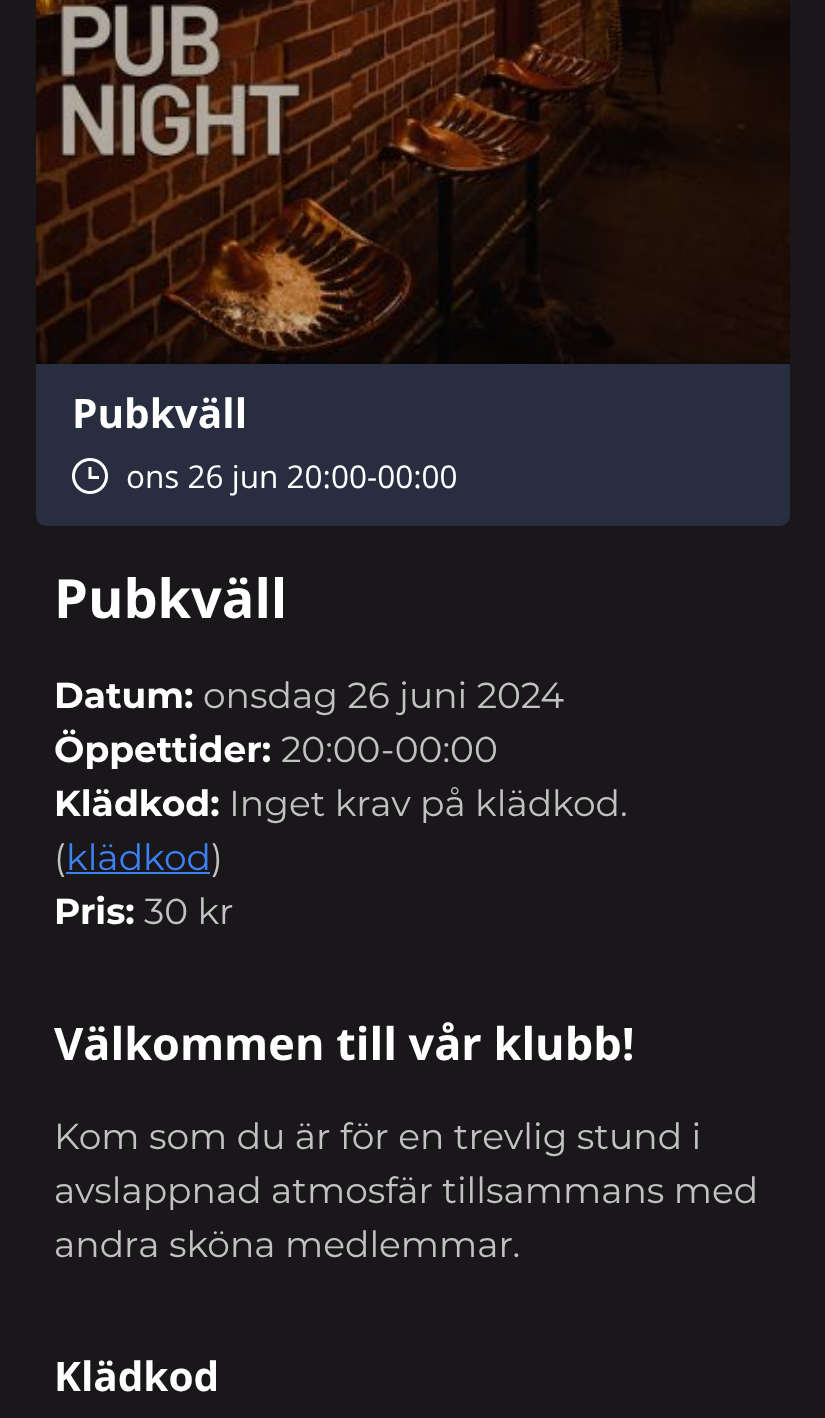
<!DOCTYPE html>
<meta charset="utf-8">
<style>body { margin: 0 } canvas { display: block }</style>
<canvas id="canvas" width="825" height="1418"></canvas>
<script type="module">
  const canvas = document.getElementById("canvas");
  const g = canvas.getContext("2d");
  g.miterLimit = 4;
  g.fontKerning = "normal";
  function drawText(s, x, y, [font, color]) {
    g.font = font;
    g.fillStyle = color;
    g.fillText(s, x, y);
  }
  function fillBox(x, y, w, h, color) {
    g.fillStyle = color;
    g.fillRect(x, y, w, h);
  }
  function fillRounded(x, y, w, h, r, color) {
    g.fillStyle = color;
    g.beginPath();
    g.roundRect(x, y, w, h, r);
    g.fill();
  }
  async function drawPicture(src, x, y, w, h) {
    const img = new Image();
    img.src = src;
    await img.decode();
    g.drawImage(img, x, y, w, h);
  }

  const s1 = ["bold 40.5px Open Sans", "#FFFFFF"];
  const s2 = ["31.5px Open Sans", "#FFFFFF"];
  const s3 = ["bold 54px Open Sans", "#FFFFFF"];
  const s4 = ["bold 36px Montserrat", "#FFFFFF"];
  const s5 = ["36px Montserrat", "#C2C2C2"];
  const s6 = ["36px Montserrat", "#3B82F6"];
  const s7 = ["bold 45px Open Sans", "#FFFFFF"];

  fillBox(0, 0, 825, 1418, "#1A171B");
  fillRounded(36, -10, 754, 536, 10, "#282E40");
  await drawPicture("pic1.png", 36, 0, 754, 364);
  drawText("Pubkväll", 72, 428, s1);
  await drawPicture("pic2.png", 72, 458, 36, 36);
  drawText("ons 26 jun 20:00-00:00", 126, 488, s2);
  drawText("Pubkväll", 54, 618, s3);
  drawText("Datum:", 54, 708, s4);
  drawText("onsdag 26 juni 2024", 203, 708, s5);
  drawText("Öppettider:", 54, 762, s4);
  drawText("20:00-00:00", 281, 762, s5);
  drawText("Klädkod:", 54, 816, s4);
  drawText("Inget krav på klädkod.", 229, 816, s5);
  drawText("(", 54, 870, s5);
  drawText("klädkod", 66, 870, s6);
  fillBox(66, 872, 144, 2, "#3B82F6");
  drawText(")", 211, 870, s5);
  drawText("Pris:", 54, 924, s4);
  drawText("30 kr", 144, 924, s5);
  drawText("Välkommen till vår klubb!", 54, 1060, s7);
  drawText("Kom som du är för en trevlig stund i", 54, 1149, s5);
  drawText("avslappnad atmosfär tillsammans med", 54, 1203, s5);
  drawText("andra sköna medlemmar.", 54, 1257, s5);
  drawText("Klädkod", 54, 1391, s1);
</script>
